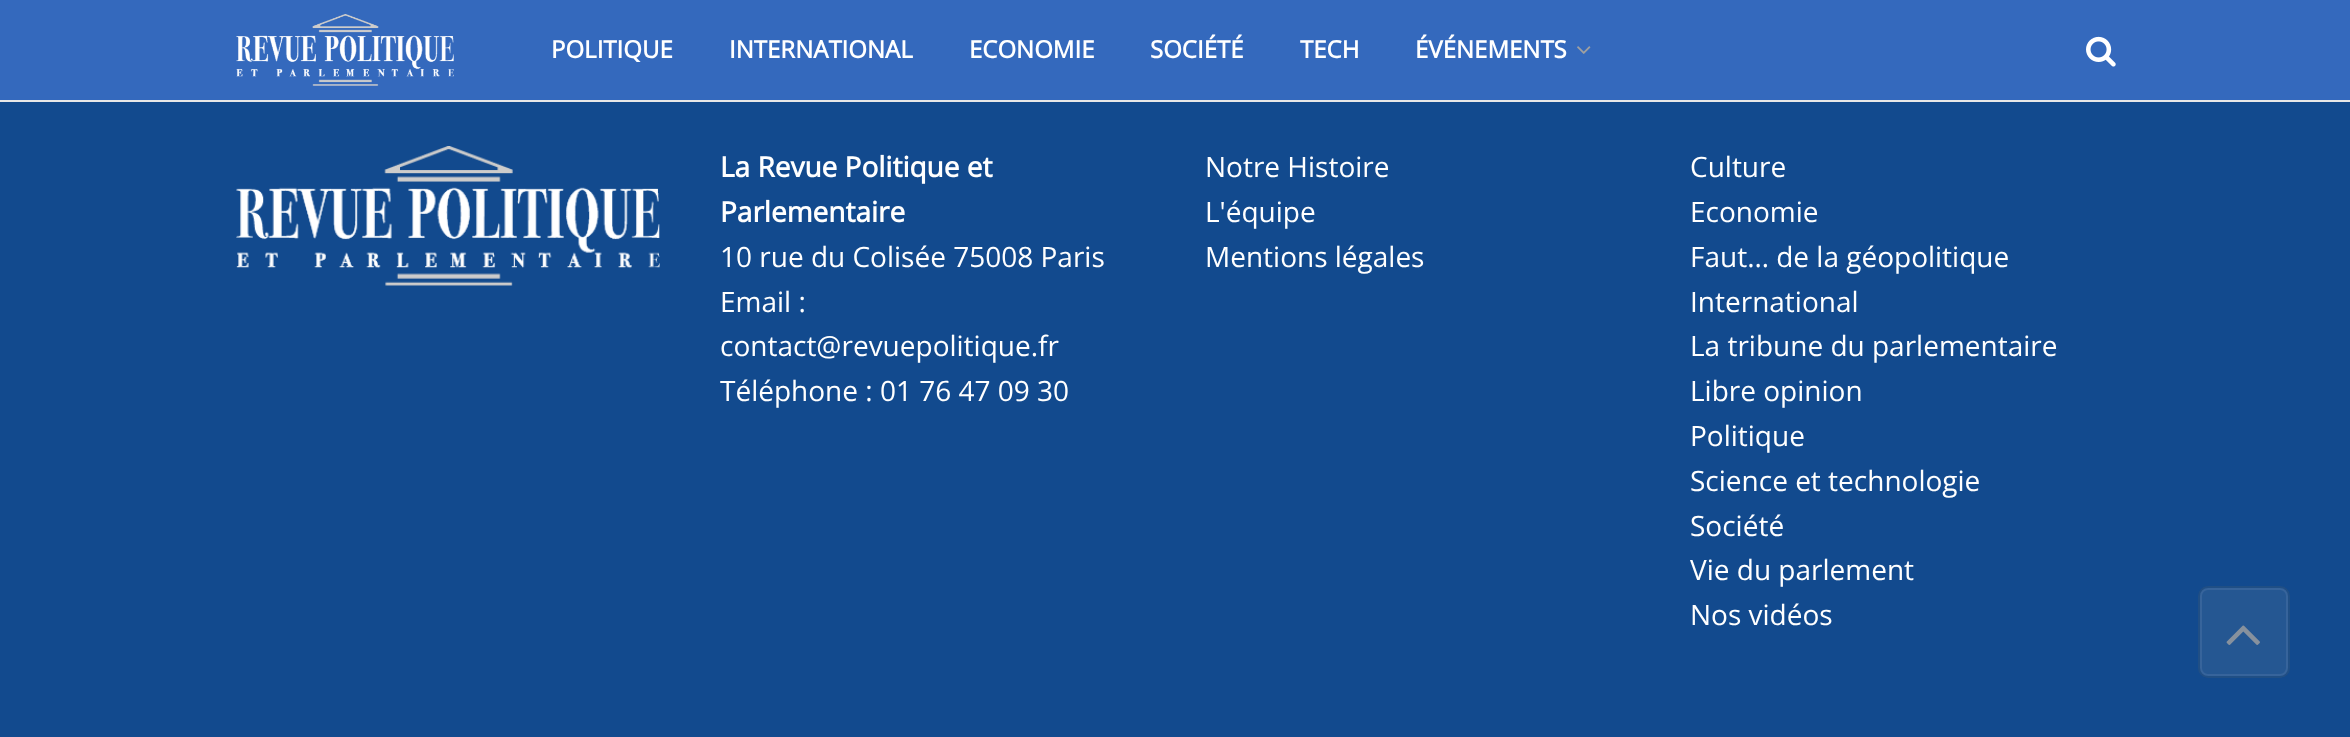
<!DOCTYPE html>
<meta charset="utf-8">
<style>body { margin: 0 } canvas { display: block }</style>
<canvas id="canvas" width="2350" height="737"></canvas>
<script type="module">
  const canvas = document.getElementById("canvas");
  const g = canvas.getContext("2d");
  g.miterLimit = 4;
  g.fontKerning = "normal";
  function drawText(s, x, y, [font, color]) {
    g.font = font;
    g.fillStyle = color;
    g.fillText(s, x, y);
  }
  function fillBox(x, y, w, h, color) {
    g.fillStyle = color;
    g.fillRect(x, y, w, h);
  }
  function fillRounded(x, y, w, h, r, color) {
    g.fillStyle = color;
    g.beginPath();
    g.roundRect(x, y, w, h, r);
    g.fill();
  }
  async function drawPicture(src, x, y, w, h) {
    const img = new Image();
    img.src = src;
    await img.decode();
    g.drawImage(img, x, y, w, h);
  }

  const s1 = ["bold 24px Open Sans", "#FFFFFF"];
  const s2 = ["bold 28px Open Sans", "#FFFFFF"];
  const s3 = ["28px Open Sans", "#FFFFFF"];

  fillBox(0, 0, 2350, 737, "#124A8E");
  fillBox(0, 0, 2350, 100, "#3469BD");
  fillBox(0, 100, 2350, 2, "#E8E8E8");
  await drawPicture("pic1.png", 236, 14, 218, 72);
  drawText("POLITIQUE", 551, 58, s1);
  drawText("INTERNATIONAL", 729, 58, s1);
  drawText("ECONOMIE", 969, 58, s1);
  drawText("SOCIÉTÉ", 1150, 58, s1);
  drawText("TECH", 1300, 58, s1);
  drawText("ÉVÉNEMENTS", 1415, 58, s1);
  await drawPicture("pic2.png", 1577, 46, 14, 8);
  await drawPicture("pic3.png", 2086, 36, 30, 31);
  await drawPicture("pic4.png", 236, 146, 424, 140);
  drawText("La Revue Politique et", 720, 177, s2);
  drawText("Parlementaire", 720, 222, s2);
  drawText("10 rue du Colisée 75008 Paris", 720, 267, s3);
  drawText("Email :", 720, 312, s3);
  drawText("contact@revuepolitique.fr", 720, 356, s3);
  drawText("Téléphone : 01 76 47 09 30", 720, 401, s3);
  drawText("Notre Histoire", 1205, 177, s3);
  drawText("L'équipe", 1205, 222, s3);
  drawText("Mentions légales", 1205, 267, s3);
  drawText("Culture", 1690, 177, s3);
  drawText("Economie", 1690, 222, s3);
  drawText("Faut… de la géopolitique", 1690, 267, s3);
  drawText("International", 1690, 312, s3);
  drawText("La tribune du parlementaire", 1690, 356, s3);
  drawText("Libre opinion", 1690, 401, s3);
  drawText("Politique", 1690, 446, s3);
  drawText("Science et technologie", 1690, 491, s3);
  drawText("Société", 1690, 536, s3);
  drawText("Vie du parlement", 1690, 580, s3);
  drawText("Nos vidéos", 1690, 625, s3);
  fillRounded(2198, 586, 92, 92, 10, "rgba(148, 159, 172, 0.15)");
  g.beginPath();
  g.roundRect(2201, 589, 86, 86, 7);
  g.strokeStyle = "#37649B";
  g.lineWidth = 2;
  g.stroke();
  g.beginPath();
  g.roundRect(2199, 587, 90, 90, 9);
  g.strokeStyle = "rgba(4, 15, 28, 0.11)";
  g.stroke();
  await drawPicture("pic5.png", 2226, 625, 34, 20);
</script>
